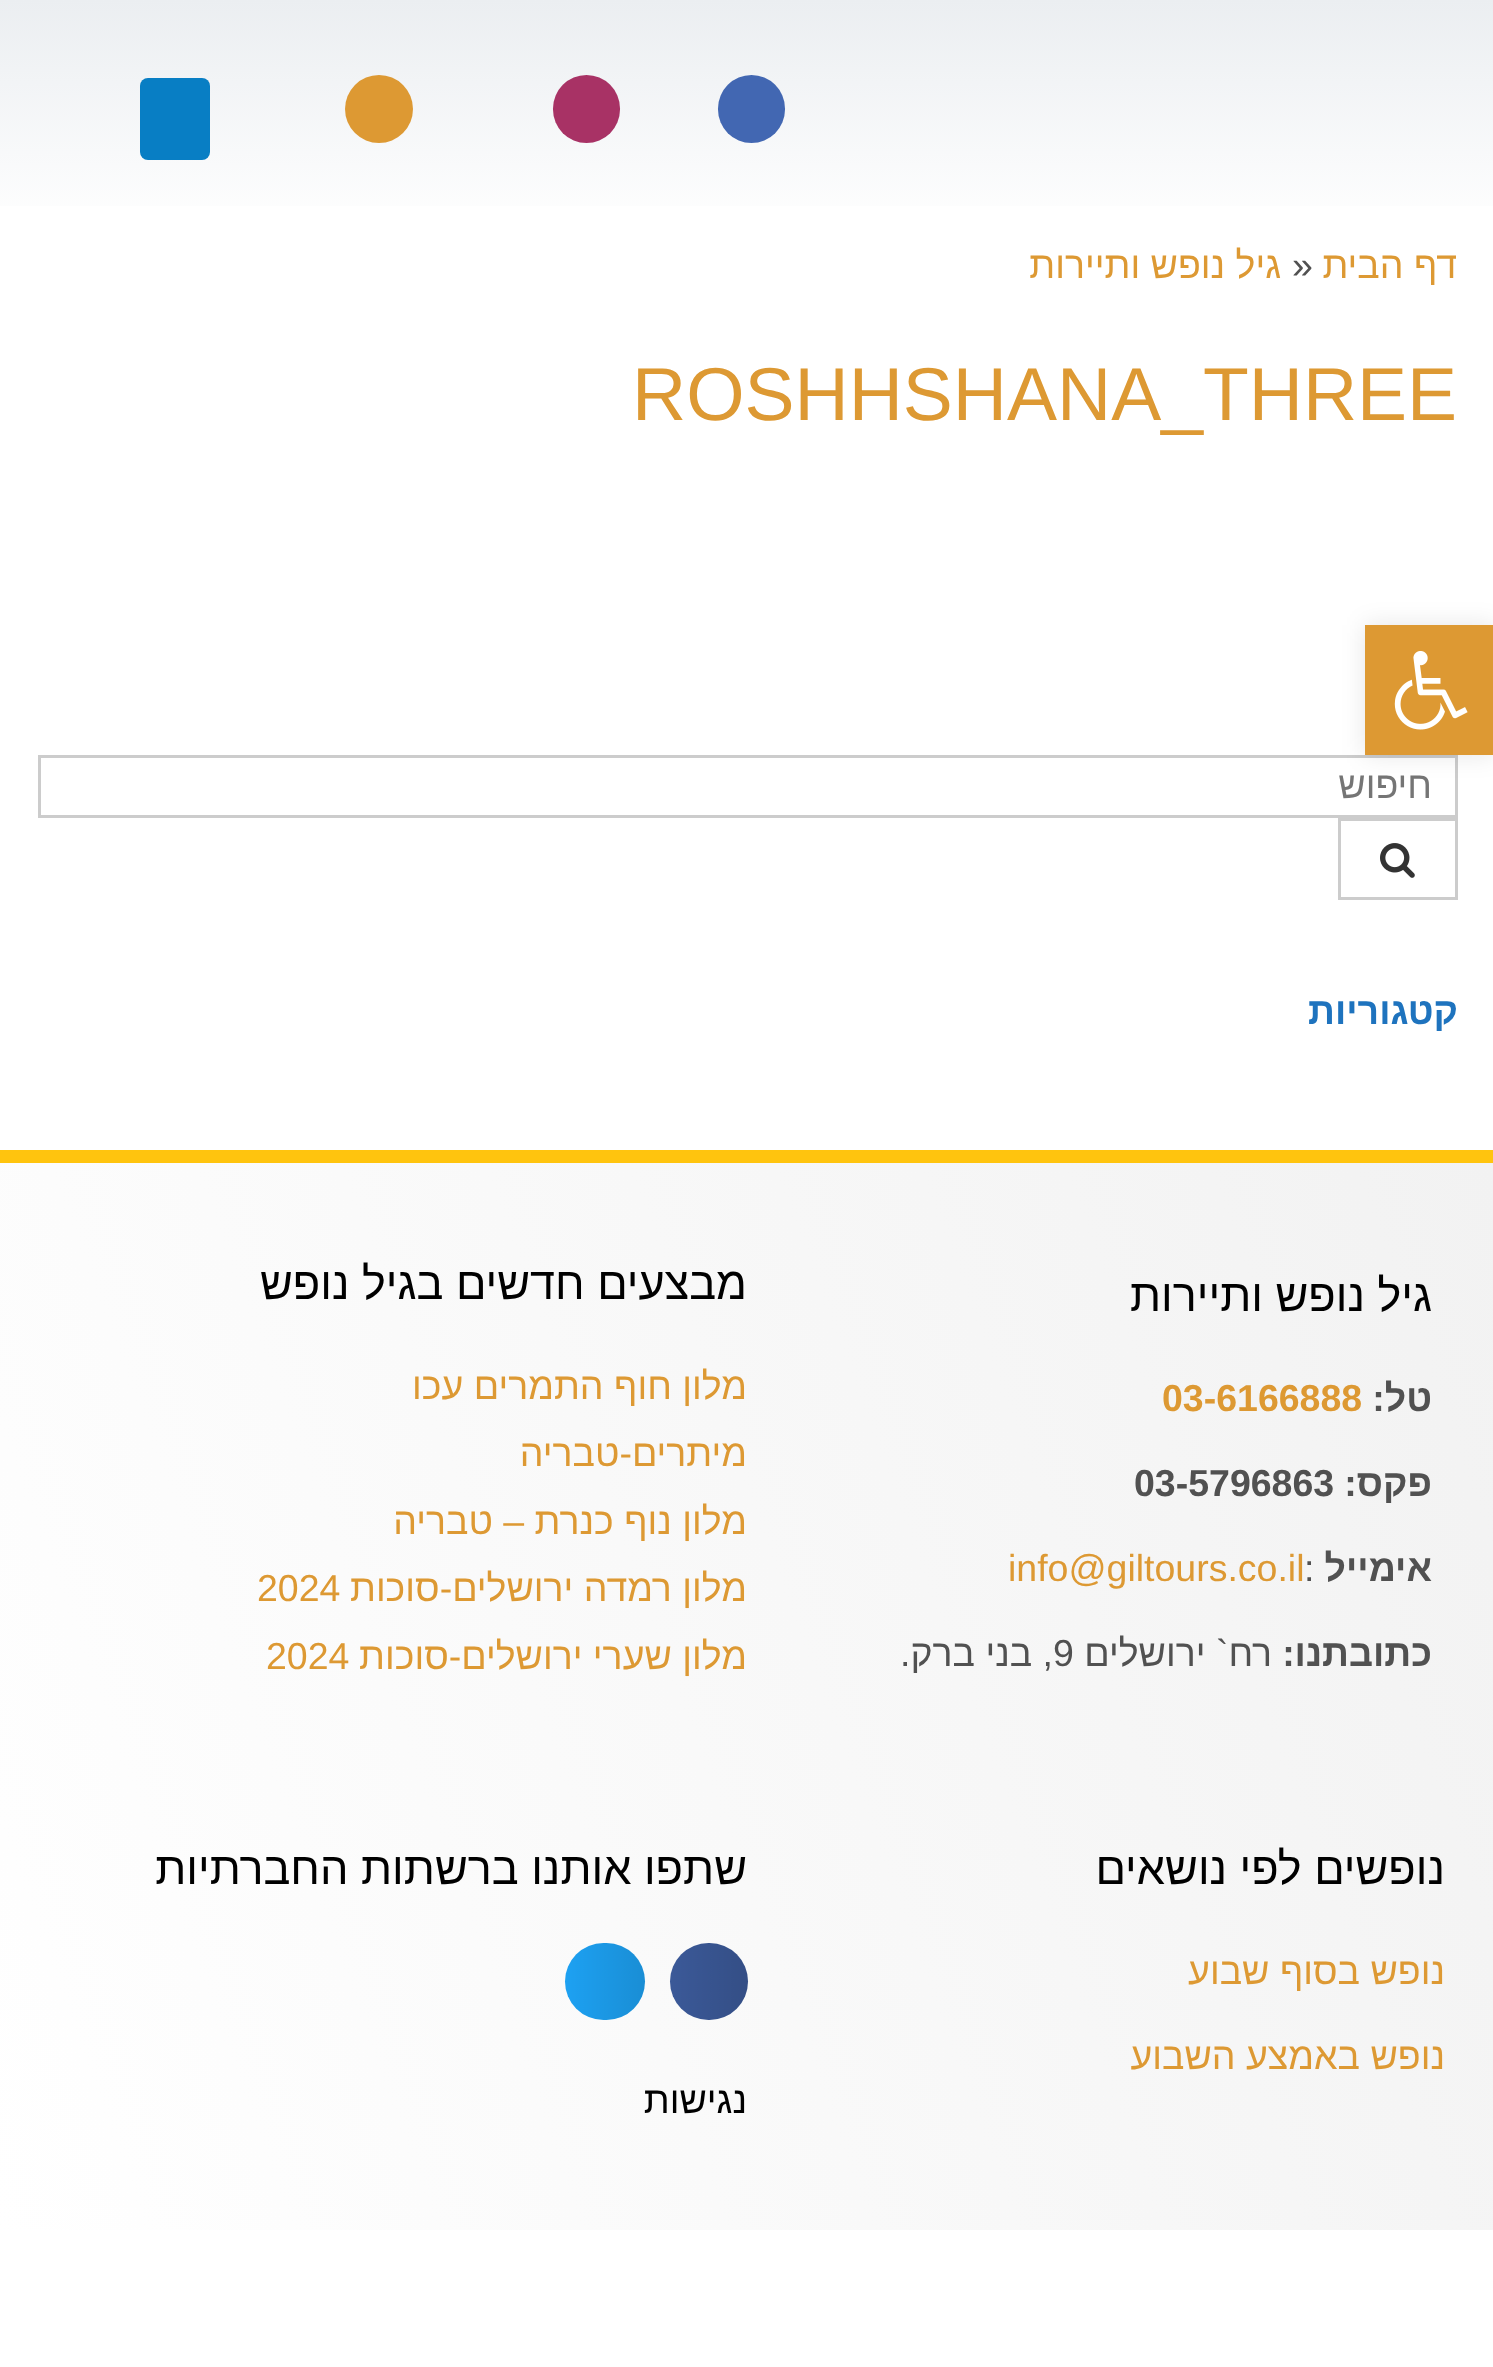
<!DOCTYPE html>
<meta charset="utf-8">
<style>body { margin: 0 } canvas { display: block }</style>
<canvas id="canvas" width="1493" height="2367"></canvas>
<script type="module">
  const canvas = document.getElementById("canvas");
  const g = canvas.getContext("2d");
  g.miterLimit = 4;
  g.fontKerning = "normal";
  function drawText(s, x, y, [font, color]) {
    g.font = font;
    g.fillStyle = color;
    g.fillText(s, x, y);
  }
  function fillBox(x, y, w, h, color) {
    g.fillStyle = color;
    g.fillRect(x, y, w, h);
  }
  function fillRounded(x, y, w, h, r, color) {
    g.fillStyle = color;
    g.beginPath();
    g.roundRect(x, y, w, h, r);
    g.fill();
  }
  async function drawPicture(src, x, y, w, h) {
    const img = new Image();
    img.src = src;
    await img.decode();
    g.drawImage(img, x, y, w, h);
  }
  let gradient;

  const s1 = ["37.5px Liberation Sans", "#DD9933"];
  const s2 = ["37.5px Liberation Sans", "#515151"];
  const s3 = ["75px Liberation Sans", "#DD9933"];
  const s4 = ["37.5px Liberation Sans", "#757575"];
  const s5 = ["bold 37.5px Liberation Sans", "#1E73BE"];
  const s6 = ["45px Liberation Sans", "#000000"];
  const s7 = ["bold 37.5px Liberation Sans", "#515151"];
  const s8 = ["bold 37.5px Liberation Sans", "#DD9933"];
  const s9 = ["37.5px Liberation Sans", "#000000"];

  fillBox(0, 0, 1493, 2367, "#FFFFFF");
  gradient = g.createLinearGradient(748, 0, 748, 235);
  gradient.addColorStop(0, "#EBEEF1");
  gradient.addColorStop(1, "#FFFFFF");
  g.fillStyle = gradient;
  g.fillRect(0, 0, 1493, 206);
  fillRounded(718, 75, 67, 68, 33.5, "#4267B2");
  fillRounded(553, 75, 67, 68, 33.5, "#A83265");
  g.fillStyle = "#DD9933";
  g.beginPath();
  g.arc(379, 109, 34, 0, Math.PI * 2);
  g.fill();
  fillRounded(140, 78, 70, 82, 8, "#087EC4");
  g.direction = "rtl";
  drawText("דף הבית", 1457, 278, s1);
  g.direction = "ltr";
  drawText("»", 1292, 278, s2);
  g.direction = "rtl";
  drawText("גיל נופש ותיירות", 1281, 278, s1);
  g.direction = "ltr";
  drawText("ROSHHSHANA_THREE", 632, 420, s3);
  g.strokeStyle = "#CCCCCC";
  g.lineWidth = 3;
  g.strokeRect(39.5, 756.5, 1417, 60);
  g.direction = "rtl";
  drawText("חיפוש", 1432, 798, s4);
  g.strokeRect(1339.5, 819.5, 117, 79);
  await drawPicture("pic1.png", 1380, 843, 35, 35);
  drawText("קטגוריות", 1458, 1024, s5);
  gradient = g.createLinearGradient(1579, 1394, -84, 1999);
  gradient.addColorStop(0, "#F2F2F2");
  gradient.addColorStop(1, "#FFFFFF");
  g.fillStyle = gradient;
  g.fillRect(0, 1163, 1493, 1067);
  fillBox(0, 1150, 1493, 13, "#FFC40E");
  drawText("גיל נופש ותיירות", 1432, 1311, s6);
  drawText("טל:", 1432, 1411, s7);
  g.direction = "ltr";
  drawText("03-6166888", 1162, 1411, s8);
  g.direction = "rtl";
  drawText("פקס:", 1432, 1496, s7);
  g.direction = "ltr";
  drawText("03-5796863", 1134, 1496, s7);
  g.direction = "rtl";
  drawText("אימייל", 1432, 1581, s7);
  g.direction = "ltr";
  drawText(":", 1304, 1581, s2);
  drawText("info@giltours.co.il", 1008, 1581, s1);
  g.direction = "rtl";
  drawText("כתובתנו:", 1432, 1666, s7);
  drawText("רח` ירושלים", 1272, 1666, s2);
  g.direction = "ltr";
  drawText("9", 1053, 1666, s2);
  g.direction = "rtl";
  drawText(", בני ברק.", 1053, 1666, s2);
  drawText("מבצעים חדשים בגיל נופש", 747, 1299, s6);
  drawText("מלון חוף התמרים עכו", 747, 1399, s1);
  drawText("מיתרים-טבריה", 747, 1466, s1);
  drawText("מלון נוף כנרת – טבריה", 747, 1534, s1);
  drawText("מלון רמדה ירושלים-סוכות", 747, 1601, s1);
  g.direction = "ltr";
  drawText("2024", 257, 1601, s1);
  g.direction = "rtl";
  drawText("מלון שערי ירושלים-סוכות", 747, 1669, s1);
  g.direction = "ltr";
  drawText("2024", 266, 1669, s1);
  g.direction = "rtl";
  drawText("נופשים לפי נושאים", 1445, 1884, s6);
  drawText("נופש בסוף שבוע", 1445, 1984, s1);
  drawText("נופש באמצע השבוע", 1445, 2069, s1);
  drawText("שתפו אותנו ברשתות החברתיות", 747, 1884, s6);
  fillRounded(670, 1943, 78, 77, 38.5, "#3B5998");
  gradient = g.createLinearGradient(748, 1981, 670, 1981);
  gradient.addColorStop(0, "rgba(0, 0, 0, 0.12)");
  gradient.addColorStop(1, "rgba(0, 0, 0, 0)");
  g.fillStyle = gradient;
  g.beginPath();
  g.roundRect(670, 1943, 78, 77, 38.5);
  g.fill();
  fillRounded(565, 1943, 80, 77, 38.5, "#1DA1F2");
  gradient = g.createLinearGradient(645, 1981, 565, 1981);
  gradient.addColorStop(0, "rgba(0, 0, 0, 0.12)");
  gradient.addColorStop(1, "rgba(0, 0, 0, 0)");
  g.fillStyle = gradient;
  g.beginPath();
  g.roundRect(565, 1943, 80, 77, 38.5);
  g.fill();
  drawText("נגישות", 747, 2113, s9);
  g.fillStyle = "rgba(0, 0, 0, 0.1)";
  g.filter = "blur(12.5px)";
  g.beginPath();
  g.rect(1365, 625, 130, 130);
  g.fill();
  g.filter = "none";
  fillBox(1365, 625, 128, 130, "#DD9933");
  await drawPicture("pic2.png", 1394, 651, 74, 79);
</script>
